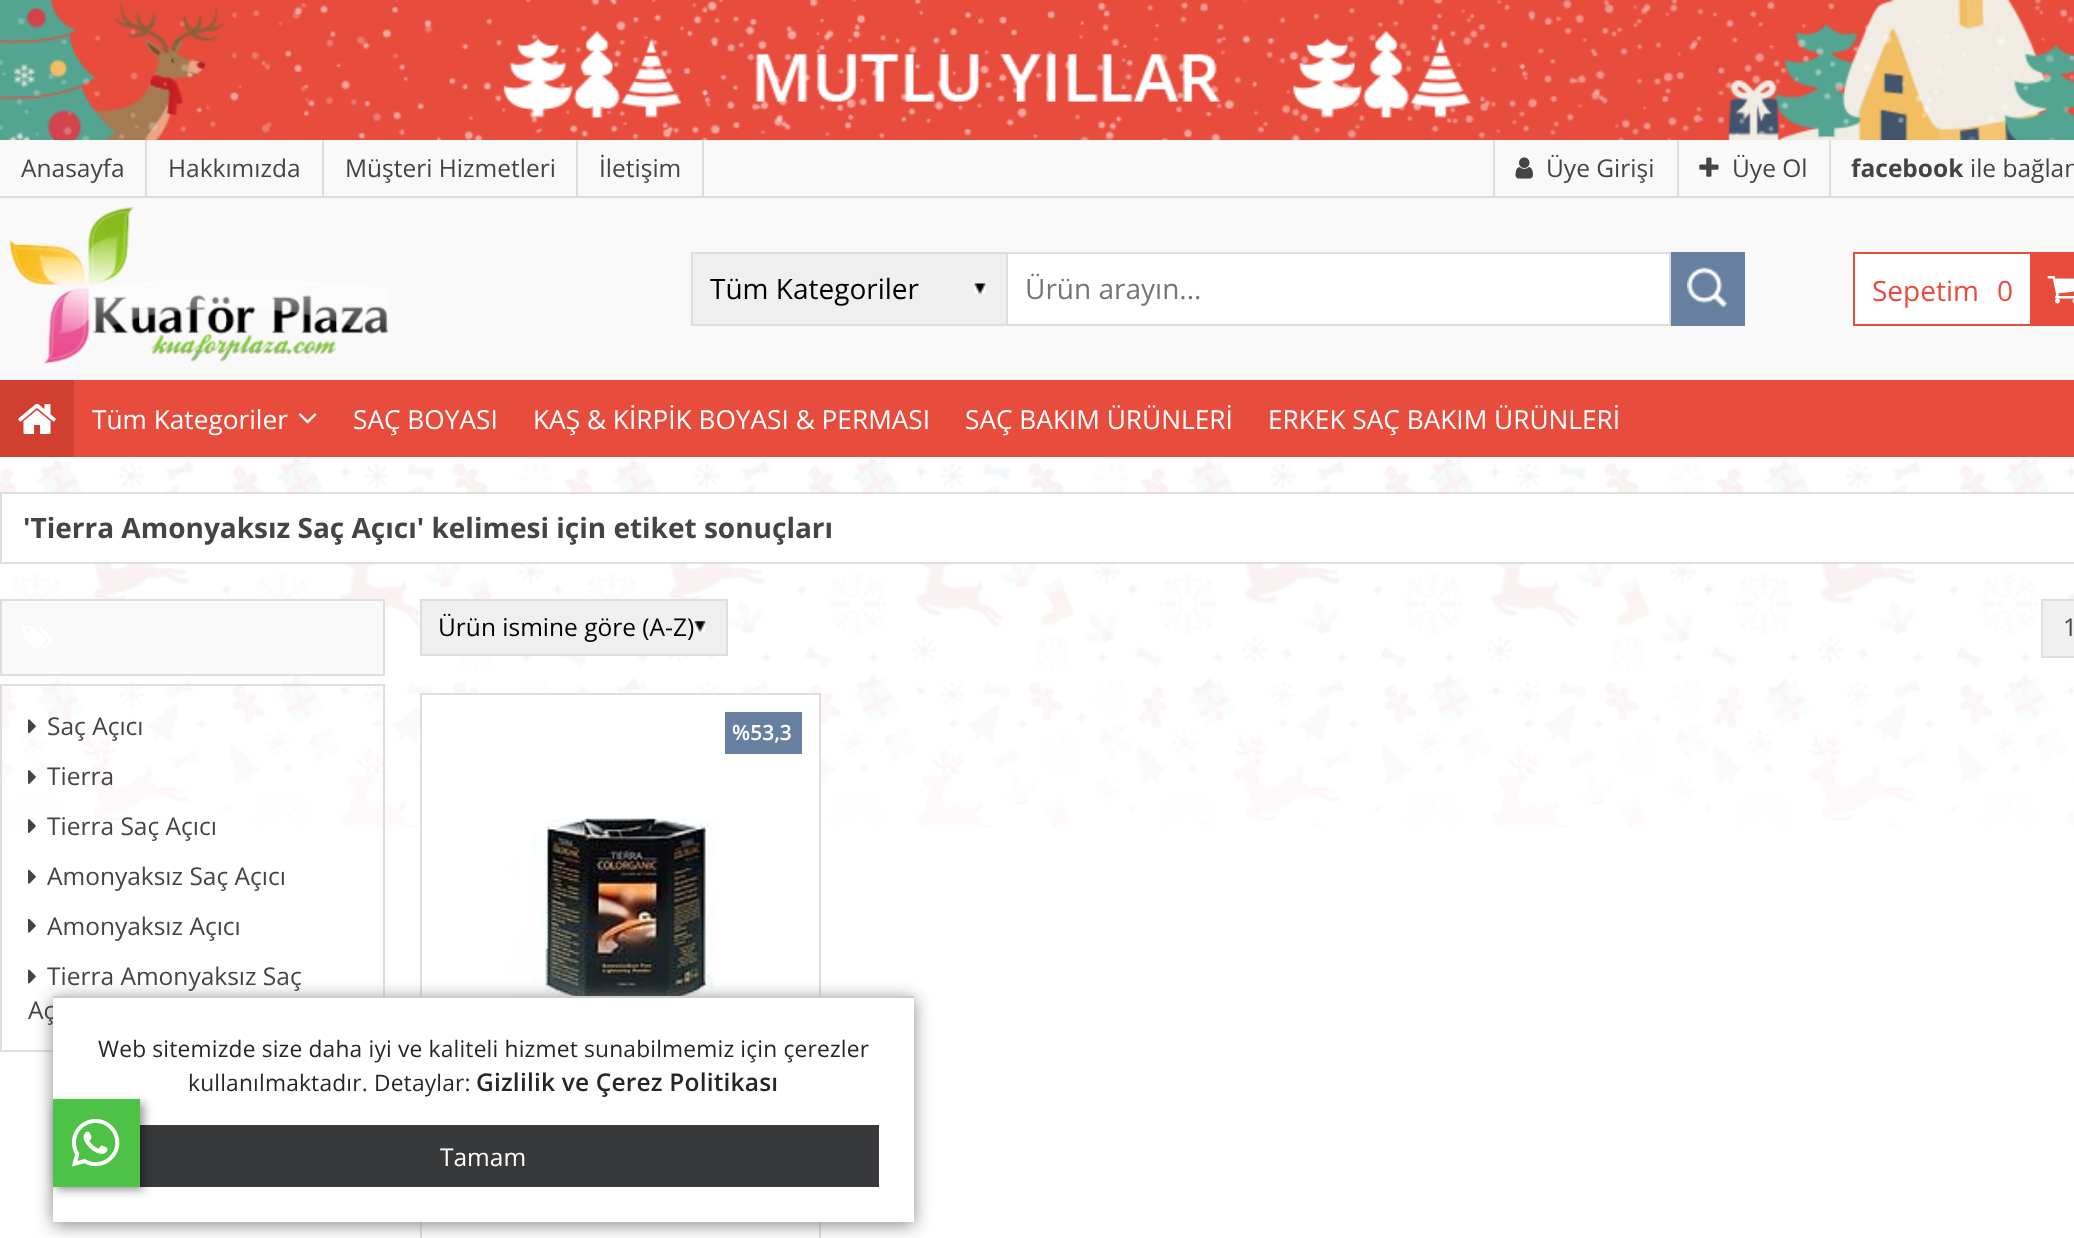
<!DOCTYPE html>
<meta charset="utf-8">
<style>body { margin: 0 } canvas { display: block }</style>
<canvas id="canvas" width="2074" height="1238"></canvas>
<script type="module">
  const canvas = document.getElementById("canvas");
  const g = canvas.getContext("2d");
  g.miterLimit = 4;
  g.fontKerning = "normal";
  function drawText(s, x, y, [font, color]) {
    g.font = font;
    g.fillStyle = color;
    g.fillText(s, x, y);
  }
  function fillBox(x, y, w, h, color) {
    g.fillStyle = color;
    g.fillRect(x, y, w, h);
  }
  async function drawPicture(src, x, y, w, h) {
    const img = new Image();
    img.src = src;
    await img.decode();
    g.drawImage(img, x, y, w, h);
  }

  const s1 = ["24.5px Open Sans", "#444444"];
  const s2 = ["bold 24.5px Open Sans", "#444444"];
  const s3 = ["28px Open Sans", "#000000"];
  const s4 = ["28px Open Sans", "#757575"];
  const s5 = ["28px Open Sans", "#E74C3C"];
  const s6 = ["26.25px Open Sans", "#FFFFFF"];
  const s7 = ["22.75px Open Sans", "#262626"];
  const s8 = ["600 24.5px Open Sans", "#262626"];
  const s9 = ["24.5px Open Sans", "#FFFFFF"];
  const s10 = ["bold 28px Open Sans", "#444444"];
  const s11 = ["24.5px Open Sans", "#000000"];
  const s12 = ["600 21px Open Sans", "#FFFFFF"];

  fillBox(0, 0, 2074, 1238, "#FFFFFF");
  await drawPicture("pic1.png", 0, 457, 2074, 371);
  fillBox(0, 140, 2074, 240, "#F9F9F9");
  await drawPicture("pic2.png", 0, 0, 2074, 140);
  fillBox(0, 196, 2074, 2, "#DEDEDE");
  fillBox(145, 140, 2, 56, "#DEDEDE");
  drawText("Anasayfa", 21, 177, s1);
  fillBox(322, 140, 2, 56, "#DEDEDE");
  drawText("Hakkımızda", 168, 177, s1);
  fillBox(576, 140, 2, 56, "#DEDEDE");
  drawText("Müşteri Hizmetleri", 345, 177, s1);
  fillBox(702, 140, 2, 56, "#DEDEDE");
  drawText("İletişim", 599, 177, s1);
  fillBox(1493, 140, 2, 56, "#DEDEDE");
  await drawPicture("pic3.png", 1515, 157, 18, 22);
  drawText("Üye Girişi", 1546, 177, s1);
  fillBox(1677, 140, 2, 56, "#DEDEDE");
  await drawPicture("pic4.png", 1699, 157, 20, 20);
  drawText("Üye Ol", 1732, 177, s1);
  fillBox(1829, 140, 2, 56, "#DEDEDE");
  drawText("facebook", 1851, 177, s2);
  drawText("ile bağlan", 1970, 177, s1);
  await drawPicture("pic5.png", 9, 207, 380, 157);
  fillBox(693, 254, 313, 70, "#EFEFEF");
  await drawPicture("pic6.png", 974, 283, 12, 11);
  fillBox(691, 252, 315, 2, "#DEDEDE");
  fillBox(691, 324, 315, 2, "#DEDEDE");
  fillBox(691, 252, 2, 74, "#DEDEDE");
  drawText("Tüm Kategoriler", 710, 299, s3);
  g.fillStyle = "#FFFFFF";
  g.beginPath();
  g.rect(1007, 253, 663, 72);
  g.fill();
  g.strokeStyle = "#DEDEDE";
  g.lineWidth = 2;
  g.stroke();
  drawText("Ürün arayın...", 1025, 299, s4);
  fillBox(1671, 252, 74, 74, "#67809F");
  await drawPicture("pic7.png", 1687, 267, 41, 41);
  fillBox(1855, 254, 175, 70, "#FFFFFF");
  g.strokeStyle = "#E74C3C";
  g.strokeRect(1854, 253, 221, 72);
  drawText("Sepetim", 1872, 301, s5);
  drawText("0", 1997, 301, s5);
  fillBox(2030, 254, 44, 70, "#E74C3C");
  await drawPicture("pic8.png", 2047, 276, 27, 28);
  fillBox(74, 380, 2000, 77, "#E74C3C");
  fillBox(0, 380, 74, 77, "#D13F30");
  await drawPicture("pic9.png", 18, 404, 38, 30);
  drawText("Tüm Kategoriler", 92, 429, s6);
  await drawPicture("pic10.png", 298, 413, 19, 11);
  drawText("SAÇ BOYASI", 353, 429, s6);
  drawText("KAŞ & KİRPİK BOYASI & PERMASI", 533, 429, s6);
  drawText("SAÇ BAKIM ÜRÜNLERİ", 965, 429, s6);
  drawText("ERKEK SAÇ BAKIM ÜRÜNLERİ", 1268, 429, s6);
  fillBox(422, 695, 397, 133, "#FFFFFF");
  g.strokeStyle = "#DEDEDE";
  g.strokeRect(421, 694, 399, 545);
  await drawPicture("pic12.png", 508, 818, 207, 178);
  g.strokeRect(1, 685, 383, 366);
  await drawPicture("pic18.png", 28, 969, 8, 15);
  g.fillStyle = "#888888";
  g.filter = "blur(9px)";
  g.beginPath();
  g.rect(53, 999, 861, 226);
  g.fill();
  g.filter = "none";
  drawText("Aç", 28, 1019, s1);
  fillBox(53, 998, 861, 224, "#FFFFFF");
  fillBox(53, 996, 861, 2, "#CCCCCC");
  g.letterSpacing = "0.18px";
  drawText("Web sitemizde size daha iyi ve kaliteli hizmet sunabilmemiz için çerezler", 98, 1057, s7);
  drawText("kullanılmaktadır. Detaylar:", 188, 1091, s7);
  drawText("Gizlilik ve Çerez Politikası", 476, 1091, s8);
  fillBox(140, 1125, 739, 62, "#37393B");
  g.letterSpacing = "0px";
  drawText("Tamam", 440, 1166, s9);
  g.beginPath();
  g.rect(1, 493, 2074, 70);
  g.fill();
  g.stroke();
  drawText("'Tierra Amonyaksız Saç Açıcı' kelimesi için etiket sonuçları", 23, 538, s10);
  fillBox(422, 601, 304, 53, "#EFEFEF");
  await drawPicture("pic11.png", 694, 621, 12, 11);
  g.strokeRect(421, 600, 306, 55);
  drawText("Ürün ismine göre (A-Z)", 438, 636, s11);
  g.fillStyle = "#F0F0F0";
  g.beginPath();
  g.rect(2042, 600, 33, 57);
  g.fill();
  g.stroke();
  drawText("1", 2063, 636, s1);
  fillBox(725, 712, 77, 42, "#67809F");
  drawText("%53,3", 732, 740, s12);
  g.fillStyle = "#F9F9F9";
  g.beginPath();
  g.rect(1, 600, 383, 75);
  g.fill();
  g.stroke();
  await drawPicture("pic13.png", 23, 626, 29, 23);
  await drawPicture("pic14.png", 28, 719, 8, 15);
  drawText("Saç Açıcı", 47, 735, s1);
  await drawPicture("pic15.png", 28, 770, 8, 14);
  drawText("Tierra", 47, 785, s1);
  await drawPicture("pic16.png", 28, 819, 8, 14);
  drawText("Tierra Saç Açıcı", 47, 835, s1);
  await drawPicture("pic17.png", 28, 869, 8, 15);
  drawText("Amonyaksız Saç Açıcı", 47, 885, s1);
  await drawPicture("pic17.png", 28, 918, 8, 15);
  drawText("Amonyaksız Açıcı", 47, 935, s1);
  drawText("Tierra Amonyaksız Saç", 47, 985, s1);
  g.fillStyle = "rgba(0, 0, 0, 0.4)";
  g.filter = "blur(5px)";
  g.beginPath();
  g.rect(56, 1103, 88, 87);
  g.fill();
  g.filter = "none";
  fillBox(53, 1099, 87, 88, "#4DC247");
  await drawPicture("pic19.png", 72, 1119, 48, 48);
</script>
